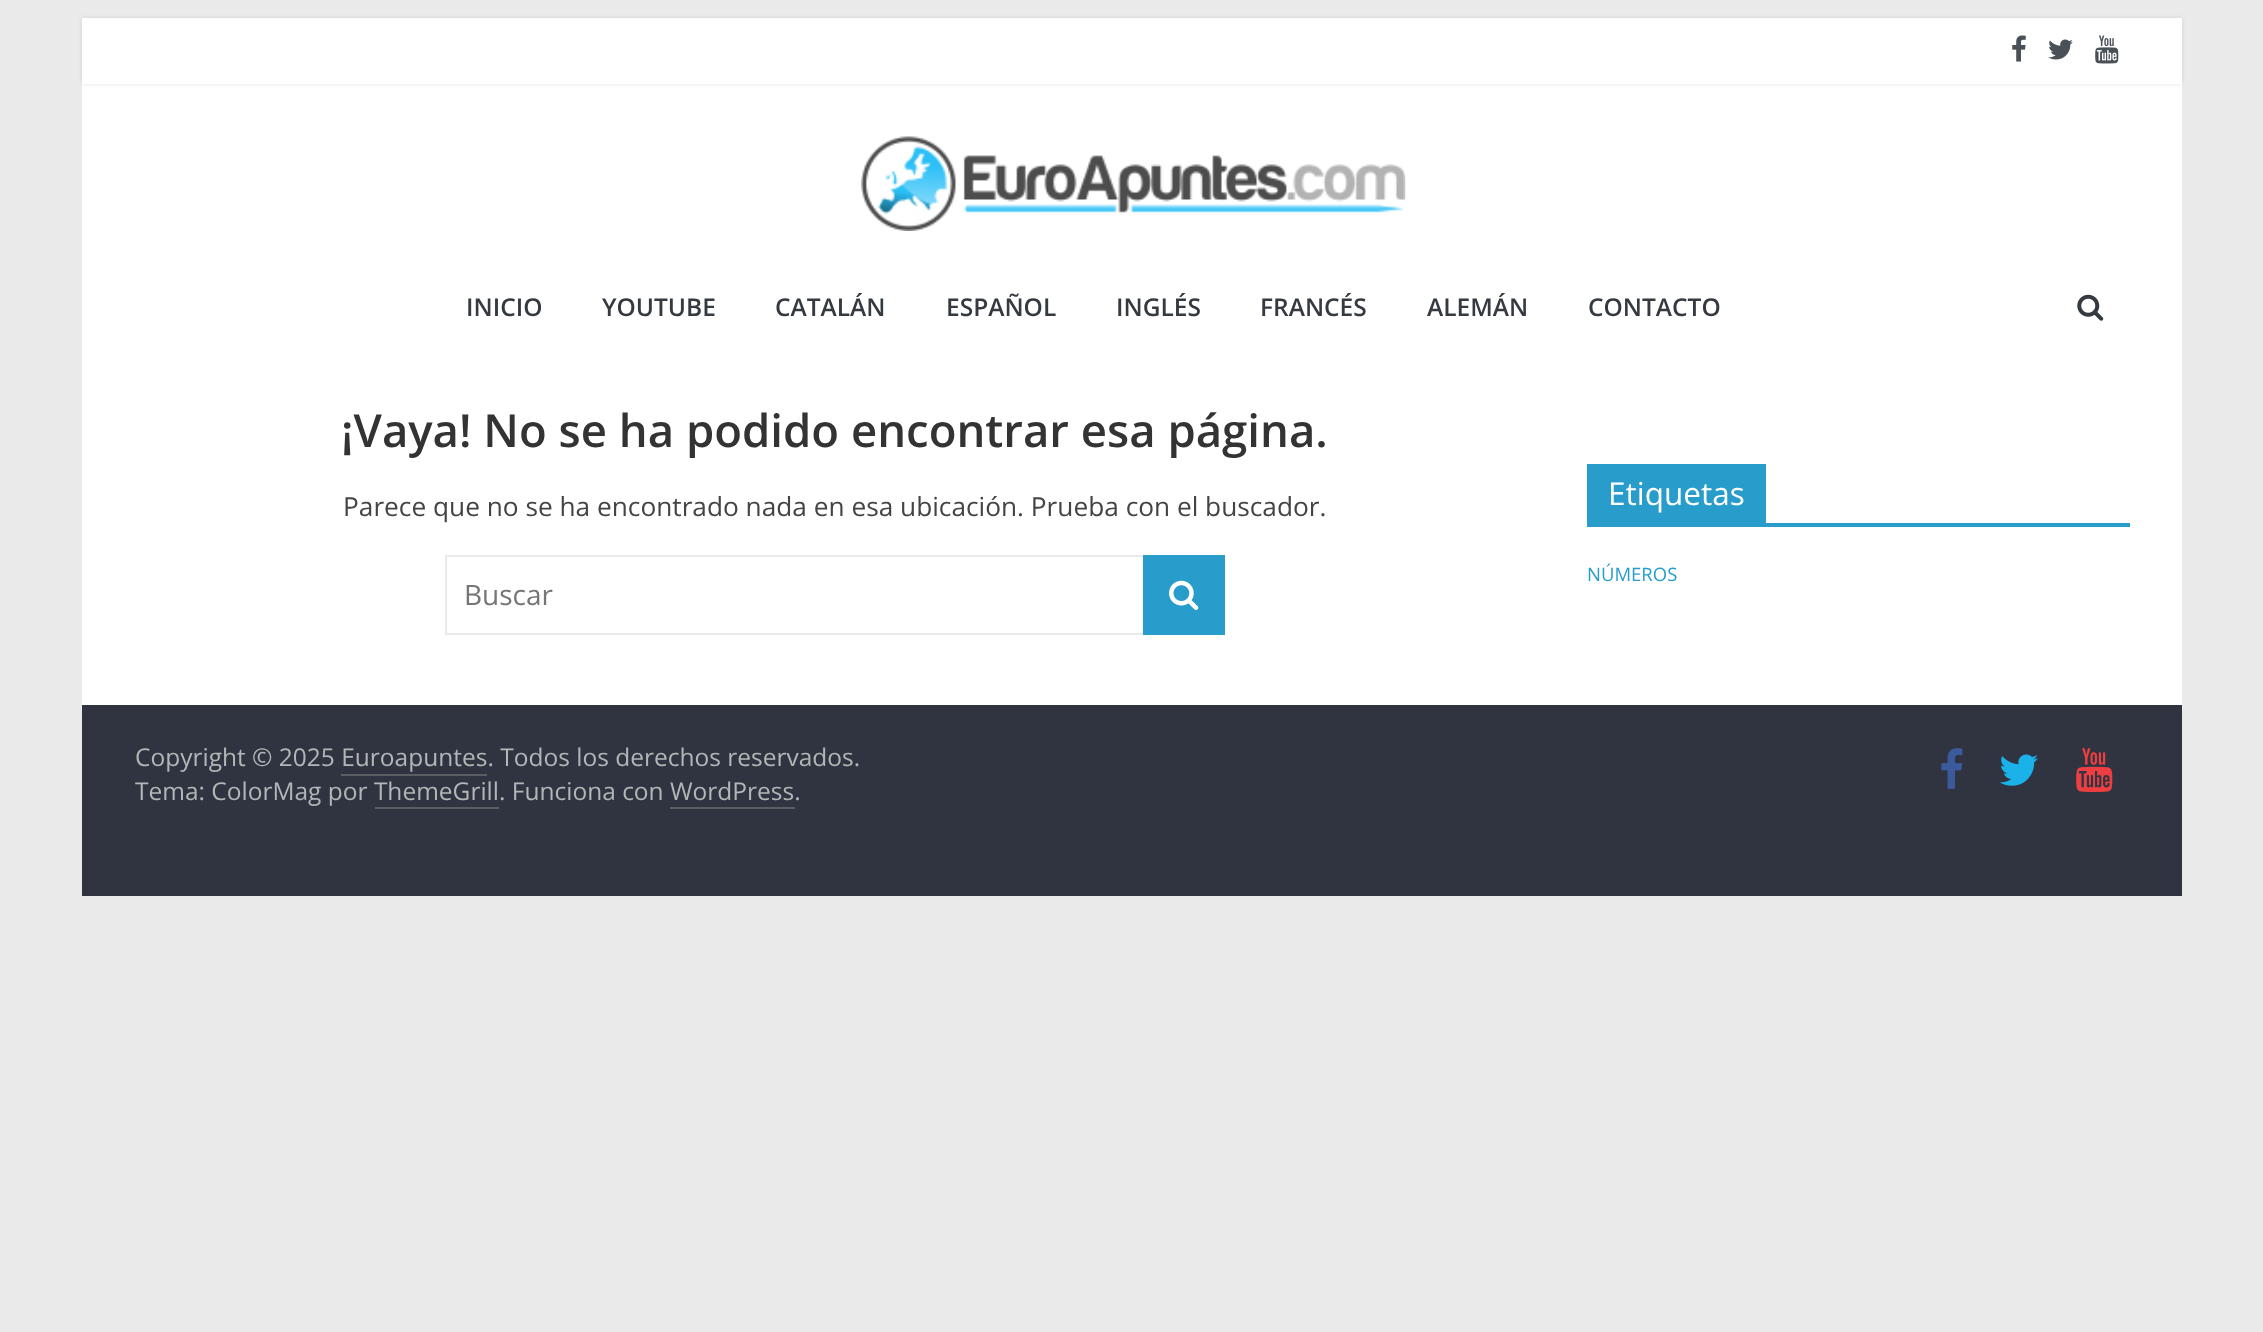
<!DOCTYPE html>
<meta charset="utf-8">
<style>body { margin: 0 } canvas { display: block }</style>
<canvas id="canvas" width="2263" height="1332"></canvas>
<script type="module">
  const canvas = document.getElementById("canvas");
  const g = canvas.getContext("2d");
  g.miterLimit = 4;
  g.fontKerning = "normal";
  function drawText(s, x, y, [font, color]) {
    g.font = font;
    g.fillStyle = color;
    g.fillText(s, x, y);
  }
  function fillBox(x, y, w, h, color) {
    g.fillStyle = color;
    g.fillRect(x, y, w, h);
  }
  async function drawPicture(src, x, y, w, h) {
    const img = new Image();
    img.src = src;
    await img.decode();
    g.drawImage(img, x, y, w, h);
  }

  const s1 = ["600 24.5px Open Sans", "#343A40"];
  const s2 = ["600 45.5px Open Sans", "#333333"];
  const s3 = ["26.25px Open Sans", "#444444"];
  const s4 = ["28px Open Sans", "#757575"];
  const s5 = ["31.5px Open Sans", "#FFFFFF"];
  const s6 = ["18.5px Open Sans", "#289DCC"];
  const s7 = ["24.5px Open Sans", "#B1B6B6"];

  fillBox(0, 0, 2263, 1332, "#EAEAEA");
  fillBox(82, 84, 2100, 621, "#FFFFFF");
  g.fillStyle = "rgba(0, 0, 0, 0.1)";
  g.filter = "blur(2px)";
  g.beginPath();
  g.rect(82, 18, 2100, 66);
  g.fill();
  g.filter = "none";
  fillBox(82, 18, 2100, 66, "#FFFFFF");
  await drawPicture("pic1.png", 2012, 35, 14, 27);
  await drawPicture("pic2.png", 2048, 39, 25, 21);
  await drawPicture("pic3.png", 2095, 35, 24, 29);
  await drawPicture("pic4.png", 861, 136, 545, 95);
  drawText("INICIO", 466, 316, s1);
  drawText("YOUTUBE", 602, 316, s1);
  drawText("CATALÁN", 775, 316, s1);
  drawText("ESPAÑOL", 946, 316, s1);
  drawText("INGLÉS", 1116, 316, s1);
  drawText("FRANCÉS", 1260, 316, s1);
  drawText("ALEMÁN", 1427, 316, s1);
  drawText("CONTACTO", 1588, 316, s1);
  await drawPicture("pic5.png", 2077, 294, 27, 27);
  drawText("¡Vaya! No se ha podido encontrar esa página.", 341, 447, s2);
  drawText("Parece que no se ha encontrado nada en esa ubicación. Prueba con el buscador.", 343, 516, s3);
  g.strokeStyle = "#EAEAEA";
  g.lineWidth = 2;
  g.strokeRect(446, 556, 698, 78);
  drawText("Buscar", 464, 605, s4);
  fillBox(1143, 555, 82, 80, "#289DCC");
  await drawPicture("pic6.png", 1169, 580, 30, 30);
  fillBox(1587, 523, 543, 4, "#289DCC");
  fillBox(1587, 464, 179, 59, "#289DCC");
  drawText("Etiquetas", 1608, 505, s5);
  drawText("NÚMEROS", 1587, 581, s6);
  fillBox(82, 705, 2100, 191, "#303440");
  drawText("Copyright © 2025 Euroapuntes. Todos los derechos reservados.", 135, 766, s7);
  fillBox(341, 774, 146, 2, "#5A5D62");
  drawText("Tema: ColorMag por ThemeGrill. Funciona con WordPress.", 135, 800, s7);
  fillBox(375, 807, 124, 2, "#5A5D62");
  fillBox(670, 807, 125, 2, "#5A5D62");
  await drawPicture("pic7.png", 1941, 748, 22, 41);
  await drawPicture("pic8.png", 1999, 754, 39, 32);
  await drawPicture("pic9.png", 2076, 748, 37, 44);
</script>
